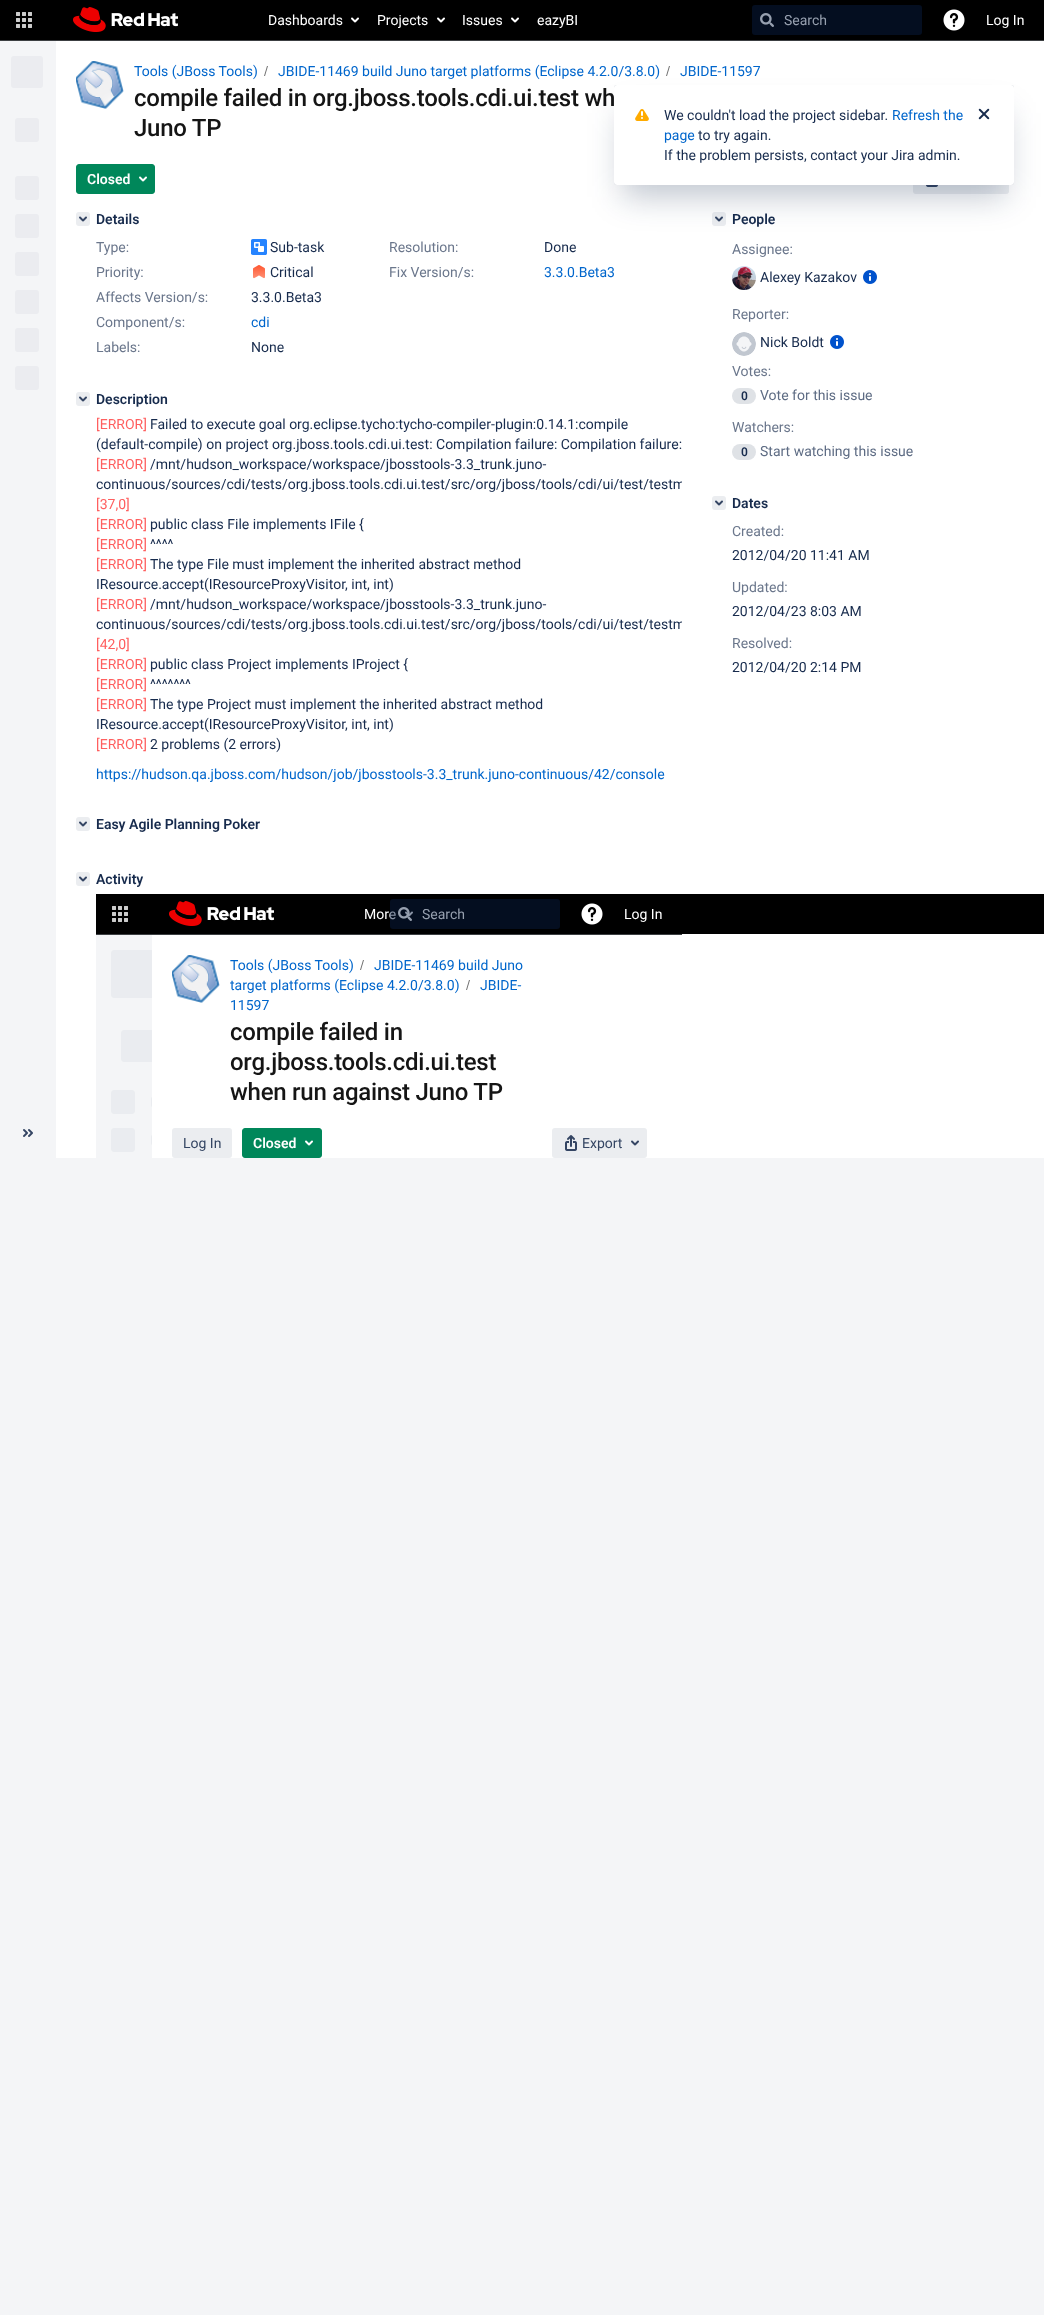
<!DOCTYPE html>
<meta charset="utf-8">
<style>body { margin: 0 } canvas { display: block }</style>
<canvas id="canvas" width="1044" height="2315"></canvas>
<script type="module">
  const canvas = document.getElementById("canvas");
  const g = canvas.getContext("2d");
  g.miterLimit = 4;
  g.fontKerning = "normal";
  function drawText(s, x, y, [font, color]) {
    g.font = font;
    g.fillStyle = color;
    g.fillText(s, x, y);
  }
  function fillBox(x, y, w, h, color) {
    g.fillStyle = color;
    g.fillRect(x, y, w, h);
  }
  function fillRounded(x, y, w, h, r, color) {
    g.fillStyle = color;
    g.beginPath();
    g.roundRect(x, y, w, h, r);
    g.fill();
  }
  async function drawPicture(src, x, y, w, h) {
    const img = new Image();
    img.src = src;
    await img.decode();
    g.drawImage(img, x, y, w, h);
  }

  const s1 = ["14px Roboto", "#FFFFFF"];
  const s2 = ["14px Roboto", "#97A0AF"];
  const s3 = ["14px Roboto", "#0066CC"];
  const s4 = ["500 24px Roboto", "#151515"];
  const s5 = ["600 14px Roboto", "#FFFFFF"];
  const s6 = ["600 14px Roboto", "#172B4D"];
  const s7 = ["14px Roboto", "#6B778C"];
  const s8 = ["14px Roboto", "#172B4D"];
  const s9 = ["14px Roboto", "#FF5F5F"];
  const s10 = ["14px Roboto", "#344563"];
  const s11 = ["600 12px Roboto", "#172B4D"];
  const s12 = ["14px Roboto", "#5E6C84"];

  fillBox(0, 0, 1044, 2315, "#F4F5F7");
  fillBox(0, 0, 1044, 40, "#000000");
  fillBox(0, 40, 1044, 1, "#3C3F42");
  await drawPicture("pic1.png", 16, 12, 16, 16);
  await drawPicture("pic2.png", 73, 7, 105, 25);
  drawText("Dashboards", 268, 25, s1);
  await drawPicture("pic3.png", 351, 17, 8, 6);
  drawText("Projects", 377, 25, s1);
  await drawPicture("pic3.png", 437, 17, 8, 6);
  drawText("Issues", 462, 25, s1);
  await drawPicture("pic3.png", 511, 17, 8, 6);
  drawText("eazyBI", 537, 25, s1);
  fillRounded(752, 5, 170, 30, 3, "#040E20");
  await drawPicture("pic4.png", 760, 13, 14, 14);
  drawText("Search", 784, 25, s2);
  await drawPicture("pic5.png", 943, 9, 22, 22);
  drawText("Log In", 986, 25, s1);
  fillRounded(11, 56, 32, 32, 3, "#EBECF0");
  fillRounded(15, 118, 24, 24, 3, "#EBECF0");
  fillRounded(15, 176, 24, 24, 3, "#EBECF0");
  fillRounded(15, 214, 24, 24, 3, "#EBECF0");
  fillRounded(15, 252, 24, 24, 3, "#EBECF0");
  fillRounded(15, 290, 24, 24, 3, "#EBECF0");
  fillRounded(15, 328, 24, 24, 3, "#EBECF0");
  fillRounded(15, 366, 24, 24, 3, "#EBECF0");
  await drawPicture("pic6.png", 23, 1129, 10, 8);
  fillBox(56, 41, 988, 1117, "#FFFFFF");
  await drawPicture("pic7.png", 76, 61, 48, 48);
  drawText("Tools (JBoss Tools)", 134, 76, s3);
  g.fillStyle = "#707070";
  g.beginPath();
  g.moveTo(265, 76);
  g.lineTo(268, 66);
  g.lineTo(267, 66);
  g.lineTo(264, 76);
  g.closePath();
  g.fill();
  drawText("JBIDE-11469 build Juno target platforms (Eclipse 4.2.0/3.8.0)", 278, 76, s3);
  g.fillStyle = "#707070";
  g.beginPath();
  g.moveTo(667, 76);
  g.lineTo(670, 66);
  g.lineTo(669, 66);
  g.lineTo(666, 76);
  g.closePath();
  g.fill();
  drawText("JBIDE-11597", 680, 76, s3);
  g.letterSpacing = "-0.25px";
  drawText("compile failed in org.jboss.tools.cdi.ui.test wh", 134, 106, s4);
  drawText("Juno TP", 134, 136, s4);
  g.fillStyle = "#00875A";
  g.beginPath();
  g.roundRect(76.5, 164.5, 78, 29, 2.5);
  g.fill();
  g.strokeStyle = "#00875A";
  g.stroke();
  g.letterSpacing = "0px";
  drawText("Closed", 87, 184, s5);
  await drawPicture("pic8.png", 139, 176, 8, 6);
  fillRounded(913, 164, 96, 30, 3, "#EBEDF0");
  await drawPicture("pic9.png", 926, 185, 12, 2);
  fillRounded(76, 212, 14, 14, 3, "#EBEDF0");
  await drawPicture("pic10.png", 79, 216, 8, 6);
  drawText("Details", 96, 224, s6);
  drawText("Type:", 96, 252, s7);
  await drawPicture("pic11.png", 251, 239, 16, 16);
  drawText("Sub-task", 270, 252, s8);
  drawText("Resolution:", 389, 252, s7);
  drawText("Done", 544, 252, s8);
  drawText("Priority:", 96, 277, s7);
  await drawPicture("pic12.png", 253, 265, 12, 14);
  drawText("Critical", 270, 277, s8);
  drawText("Fix Version/s:", 389, 277, s7);
  drawText("3.3.0.Beta3", 544, 277, s3);
  drawText("Affects Version/s:", 96, 302, s7);
  drawText("3.3.0.Beta3", 251, 302, s8);
  drawText("Component/s:", 96, 327, s7);
  drawText("cdi", 251, 327, s3);
  drawText("Labels:", 96, 352, s7);
  drawText("None", 251, 352, s8);
  fillRounded(76, 392, 14, 14, 3, "#EBEDF0");
  await drawPicture("pic10.png", 79, 396, 8, 6);
  drawText("Description", 96, 404, s6);
  drawText("[ERROR]", 96, 429, s9);
  drawText("Failed to execute goal org.eclipse.tycho:tycho-compiler-plugin:0.14.1:compile", 150, 429, s8);
  drawText("(default-compile) on project org.jboss.tools.cdi.ui.test: Compilation failure: Compilation failure:", 96, 449, s8);
  drawText("[ERROR]", 96, 469, s9);
  drawText("/mnt/hudson_workspace/workspace/jbosstools-3.3_trunk.juno-", 150, 469, s8);
  g.save();
  g.beginPath();
  g.rect(96, 414, 586, 370);
  g.clip();
  drawText("continuous/sources/cdi/tests/org.jboss.tools.cdi.ui.test/src/org/jboss/tools/cdi/ui/test/testm", 96, 489, s8);
  g.restore();
  drawText("[37,0]", 96, 509, s9);
  drawText("[ERROR]", 96, 529, s9);
  drawText("public class File implements IFile {", 150, 529, s8);
  drawText("[ERROR]", 96, 549, s9);
  drawText("^^^^", 150, 549, s8);
  drawText("[ERROR]", 96, 569, s9);
  drawText("The type File must implement the inherited abstract method", 150, 569, s8);
  drawText("IResource.accept(IResourceProxyVisitor, int, int)", 96, 589, s8);
  drawText("[ERROR]", 96, 609, s9);
  drawText("/mnt/hudson_workspace/workspace/jbosstools-3.3_trunk.juno-", 150, 609, s8);
  g.save();
  g.beginPath();
  g.rect(96, 414, 586, 370);
  g.clip();
  drawText("continuous/sources/cdi/tests/org.jboss.tools.cdi.ui.test/src/org/jboss/tools/cdi/ui/test/testm", 96, 629, s8);
  g.restore();
  drawText("[42,0]", 96, 649, s9);
  drawText("[ERROR]", 96, 669, s9);
  drawText("public class Project implements IProject {", 150, 669, s8);
  drawText("[ERROR]", 96, 689, s9);
  drawText("^^^^^^^", 150, 689, s8);
  drawText("[ERROR]", 96, 709, s9);
  drawText("The type Project must implement the inherited abstract method", 150, 709, s8);
  drawText("IResource.accept(IResourceProxyVisitor, int, int)", 96, 729, s8);
  drawText("[ERROR]", 96, 749, s9);
  drawText("2 problems (2 errors)", 150, 749, s8);
  drawText("https://hudson.qa.jboss.com/hudson/job/jbosstools-3.3_trunk.juno-continuous/42/console", 96, 779, s3);
  fillRounded(76, 817, 14, 14, 3, "#EBEDF0");
  await drawPicture("pic10.png", 79, 821, 8, 6);
  drawText("Easy Agile Planning Poker", 96, 829, s6);
  fillRounded(76, 872, 14, 14, 3, "#EBEDF0");
  await drawPicture("pic10.png", 79, 876, 8, 6);
  drawText("Activity", 96, 884, s6);
  fillBox(96, 894, 948, 40, "#000000");
  fillBox(96, 934, 586, 1, "#3C3F42");
  await drawPicture("pic1.png", 112, 906, 16, 16);
  await drawPicture("pic2.png", 169, 901, 105, 25);
  drawText("More", 364, 919, s1);
  await drawPicture("pic3.png", 405, 911, 8, 6);
  fillRounded(390, 899, 170, 30, 3, "rgba(9, 30, 66, 0.48)");
  await drawPicture("pic13.png", 398, 907, 14, 14);
  drawText("Search", 422, 919, s2);
  await drawPicture("pic5.png", 581, 903, 22, 22);
  drawText("Log In", 624, 919, s1);
  fillBox(96, 935, 56, 223, "#F4F5F7");
  await drawPicture("pic14.png", 111, 950, 41, 202);
  await drawPicture("pic7.png", 172, 955, 48, 48);
  drawText("Tools (JBoss Tools)", 230, 970, s3);
  g.fillStyle = "#707070";
  g.beginPath();
  g.moveTo(361, 970);
  g.lineTo(364, 960);
  g.lineTo(363, 960);
  g.lineTo(360, 970);
  g.closePath();
  g.fill();
  drawText("JBIDE-11469 build Juno", 374, 970, s3);
  drawText("target platforms (Eclipse 4.2.0/3.8.0)", 230, 990, s3);
  g.fillStyle = "#707070";
  g.beginPath();
  g.moveTo(467, 990);
  g.lineTo(470, 980);
  g.lineTo(469, 980);
  g.lineTo(466, 990);
  g.closePath();
  g.fill();
  drawText("JBIDE-", 480, 990, s3);
  drawText("11597", 230, 1010, s3);
  g.letterSpacing = "-0.25px";
  drawText("compile failed in", 230, 1040, s4);
  drawText("org.jboss.tools.cdi.ui.test", 230, 1070, s4);
  drawText("when run against Juno TP", 230, 1100, s4);
  fillRounded(172, 1128, 60, 30, 3, "#EBEDF0");
  g.letterSpacing = "0px";
  drawText("Log In", 183, 1148, s10);
  g.fillStyle = "#00875A";
  g.beginPath();
  g.roundRect(242.5, 1128.5, 79, 29, 2.5);
  g.fill();
  g.stroke();
  drawText("Closed", 253, 1148, s5);
  await drawPicture("pic8.png", 305, 1140, 8, 6);
  fillRounded(552, 1128, 95, 30, 3, "#EBEDF0");
  await drawPicture("pic15.png", 565, 1135, 12, 16);
  drawText("Export", 582, 1148, s10);
  await drawPicture("pic16.png", 631, 1140, 8, 6);
  fillRounded(712, 212, 14, 14, 3, "#EBEDF0");
  await drawPicture("pic10.png", 715, 216, 8, 6);
  drawText("People", 732, 224, s6);
  drawText("Assignee:", 732, 254, s7);
  await drawPicture("pic17.png", 732, 266, 24, 24);
  drawText("Alexey Kazakov", 760, 282, s8);
  await drawPicture("pic18.png", 863, 270, 14, 14);
  drawText("Reporter:", 732, 319, s7);
  await drawPicture("pic19.png", 732, 332, 24, 24);
  drawText("Nick Boldt", 760, 347, s8);
  await drawPicture("pic18.png", 830, 335, 14, 14);
  drawText("Votes:", 732, 376, s7);
  fillRounded(732, 388, 24, 16, 8, "#DFE2E6");
  drawText("0", 741, 400, s11);
  drawText("Vote for this issue", 760, 400, s12);
  drawText("Watchers:", 732, 432, s7);
  fillRounded(732, 444, 24, 16, 8, "#DFE2E6");
  drawText("0", 741, 456, s11);
  drawText("Start watching this issue", 760, 456, s12);
  fillRounded(712, 496, 14, 14, 3, "#EBEDF0");
  await drawPicture("pic10.png", 715, 500, 8, 6);
  drawText("Dates", 732, 508, s6);
  drawText("Created:", 732, 536, s7);
  drawText("2012/04/20 11:41 AM", 732, 560, s8);
  drawText("Updated:", 732, 592, s7);
  drawText("2012/04/23 8:03 AM", 732, 616, s8);
  drawText("Resolved:", 732, 648, s7);
  drawText("2012/04/20 2:14 PM", 732, 672, s8);
  g.fillStyle = "rgba(9, 30, 66, 0.25)";
  g.filter = "blur(0.5px)";
  g.beginPath();
  g.roundRect(614, 85, 400, 100, 3);
  g.fill();
  g.filter = "none";
  g.filter = "blur(16px)";
  g.beginPath();
  g.rect(622, 113, 384, 84);
  g.fill();
  g.filter = "none";
  fillRounded(614, 85, 400, 100, 3, "#FFFFFF");
  await drawPicture("pic20.png", 635, 109, 14, 12);
  drawText("We couldn't load the project sidebar.", 664, 120, s8);
  drawText("Refresh the", 892, 120, s3);
  await drawPicture("pic21.png", 978, 108, 12, 12);
  drawText("page", 664, 140, s3);
  drawText("to try again.", 698, 140, s8);
  drawText("If the problem persists, contact your Jira admin.", 664, 160, s8);
</script>
